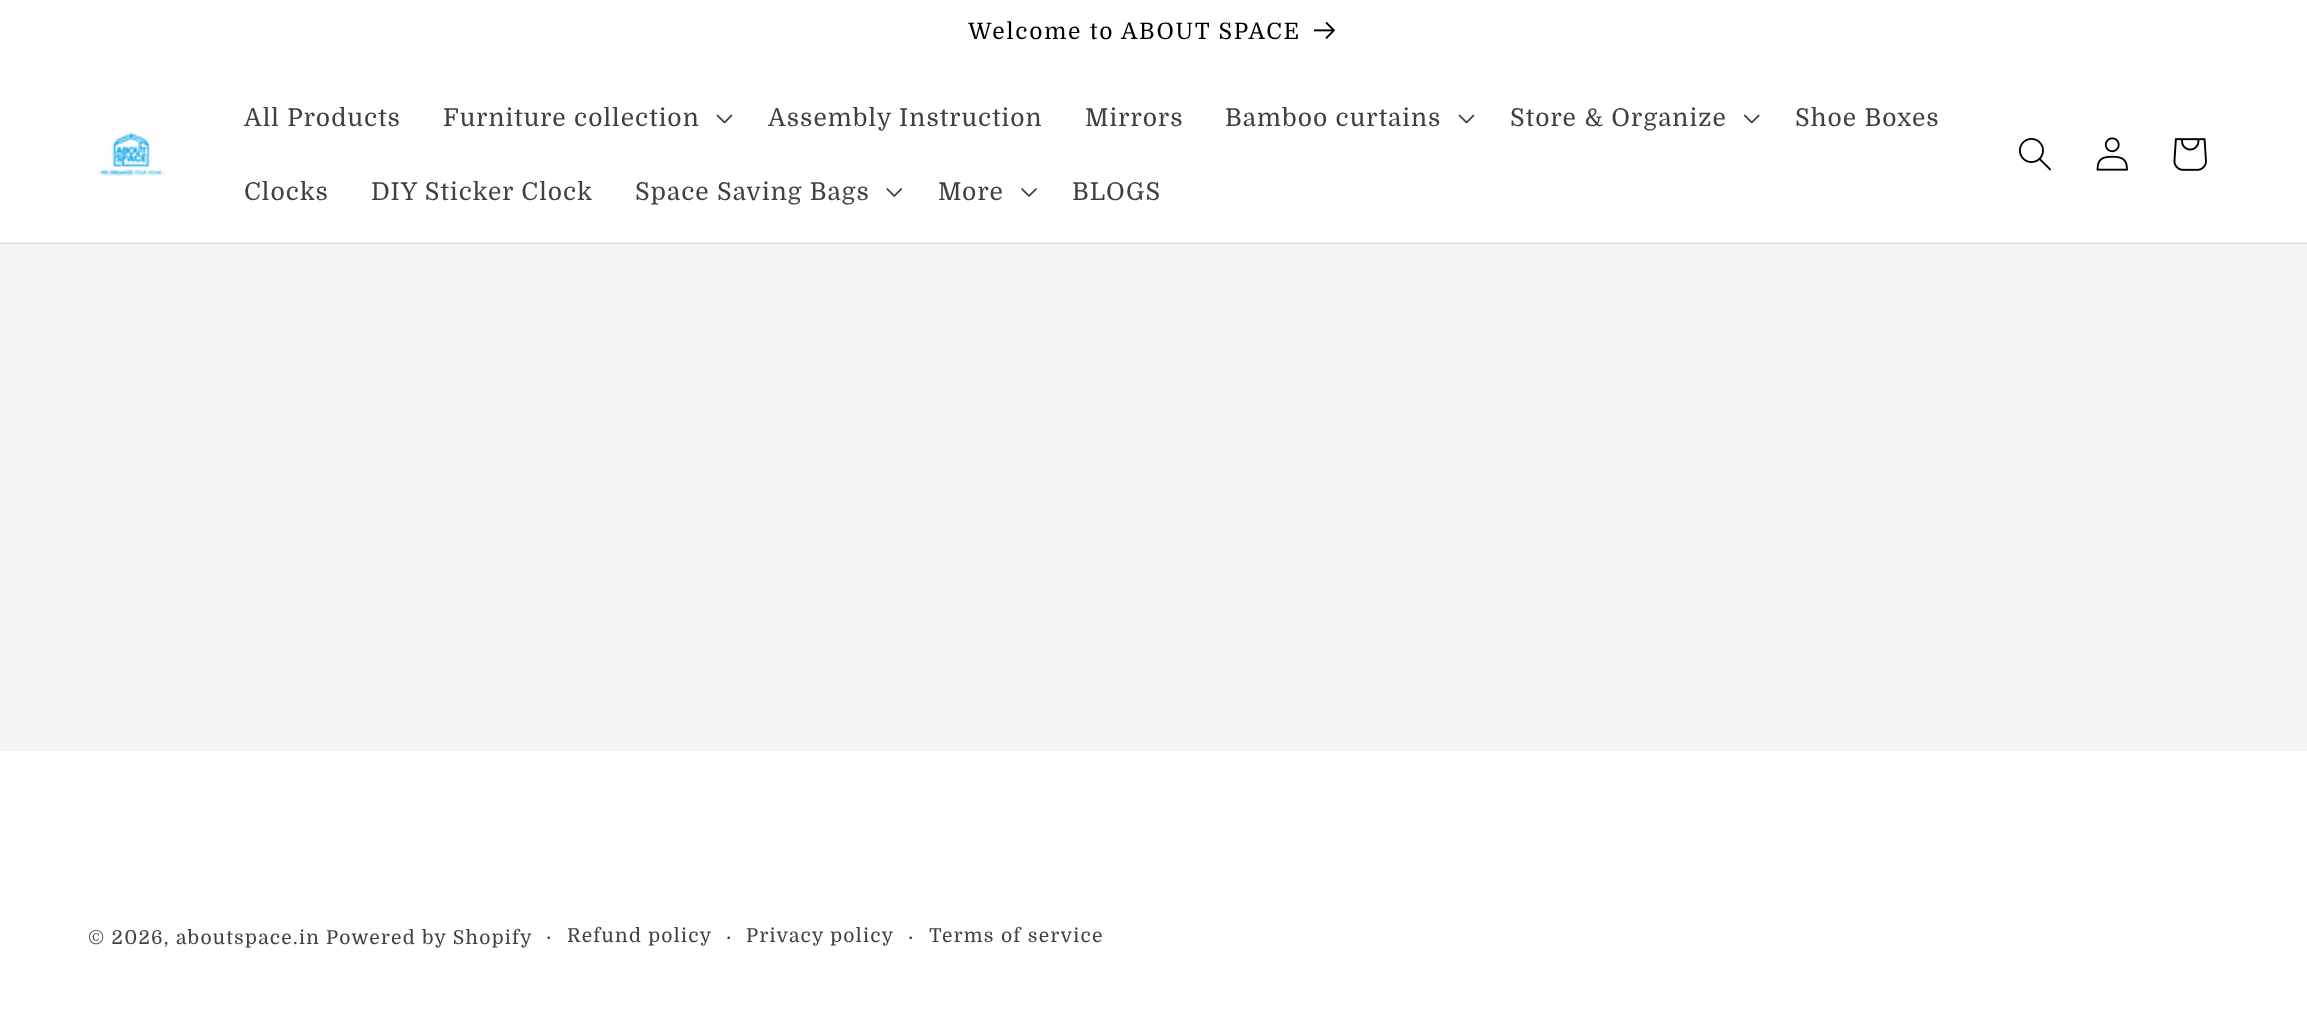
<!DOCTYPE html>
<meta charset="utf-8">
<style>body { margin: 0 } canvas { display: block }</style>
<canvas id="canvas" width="2307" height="1017"></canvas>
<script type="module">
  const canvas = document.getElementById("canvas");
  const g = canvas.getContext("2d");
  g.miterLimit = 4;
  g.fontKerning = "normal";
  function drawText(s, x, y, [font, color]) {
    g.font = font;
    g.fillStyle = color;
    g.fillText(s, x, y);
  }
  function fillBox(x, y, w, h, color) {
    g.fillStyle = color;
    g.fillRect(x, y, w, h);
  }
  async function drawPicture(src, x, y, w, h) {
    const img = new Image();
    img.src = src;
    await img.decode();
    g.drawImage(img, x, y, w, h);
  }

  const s1 = ["22.75px Domine", "#000000"];
  const s2 = ["24.5px Domine", "#404040"];
  const s3 = ["19.25px Domine", "#404040"];
  const s4 = ["21px Domine", "#404040"];

  fillBox(0, 0, 2307, 1017, "#F4F4F4");
  fillBox(0, 243, 2307, 1, "#E0E0E0");
  fillBox(0, 0, 2307, 242, "#FFFFFF");
  g.letterSpacing = "1.75px";
  drawText("Welcome to ABOUT SPACE", 968, 39, s1);
  await drawPicture("pic1.png", 1314, 21, 21, 18);
  fillBox(0, 242, 2307, 1, "#EBEBEB");
  await drawPicture("pic2.png", 97, 132, 68, 44);
  g.letterSpacing = "1.05px";
  drawText("All Products", 244, 126, s2);
  drawText("Furniture collection", 443, 126, s2);
  await drawPicture("pic3.png", 716, 114, 17, 10);
  drawText("Assembly Instruction", 768, 126, s2);
  drawText("Mirrors", 1085, 126, s2);
  drawText("Bamboo curtains", 1225, 126, s2);
  await drawPicture("pic3.png", 1458, 114, 17, 10);
  drawText("Store & Organize", 1510, 126, s2);
  await drawPicture("pic4.png", 1743, 114, 17, 10);
  drawText("Shoe Boxes", 1795, 126, s2);
  drawText("Clocks", 244, 200, s2);
  drawText("DIY Sticker Clock", 371, 200, s2);
  drawText("Space Saving Bags", 635, 200, s2);
  await drawPicture("pic5.png", 886, 188, 16, 9);
  drawText("More", 938, 200, s2);
  await drawPicture("pic6.png", 1021, 188, 16, 9);
  drawText("BLOGS", 1072, 200, s2);
  await drawPicture("pic7.png", 2019, 138, 32, 33);
  await drawPicture("pic8.png", 2096, 137, 32, 34);
  await drawPicture("pic9.png", 2173, 138, 34, 33);
  fillBox(0, 751, 2307, 266, "#FFFFFF");
  g.letterSpacing = "1.25px";
  drawText("© 2026, aboutspace.in", 88, 944, s3);
  drawText("Powered by Shopify", 326, 944, s3);
  drawText("·", 546, 944, s4);
  drawText("Refund policy", 567, 942, s3);
  drawText("·", 726, 944, s4);
  drawText("Privacy policy", 746, 942, s3);
  drawText("·", 908, 944, s4);
  drawText("Terms of service", 929, 942, s3);
</script>
